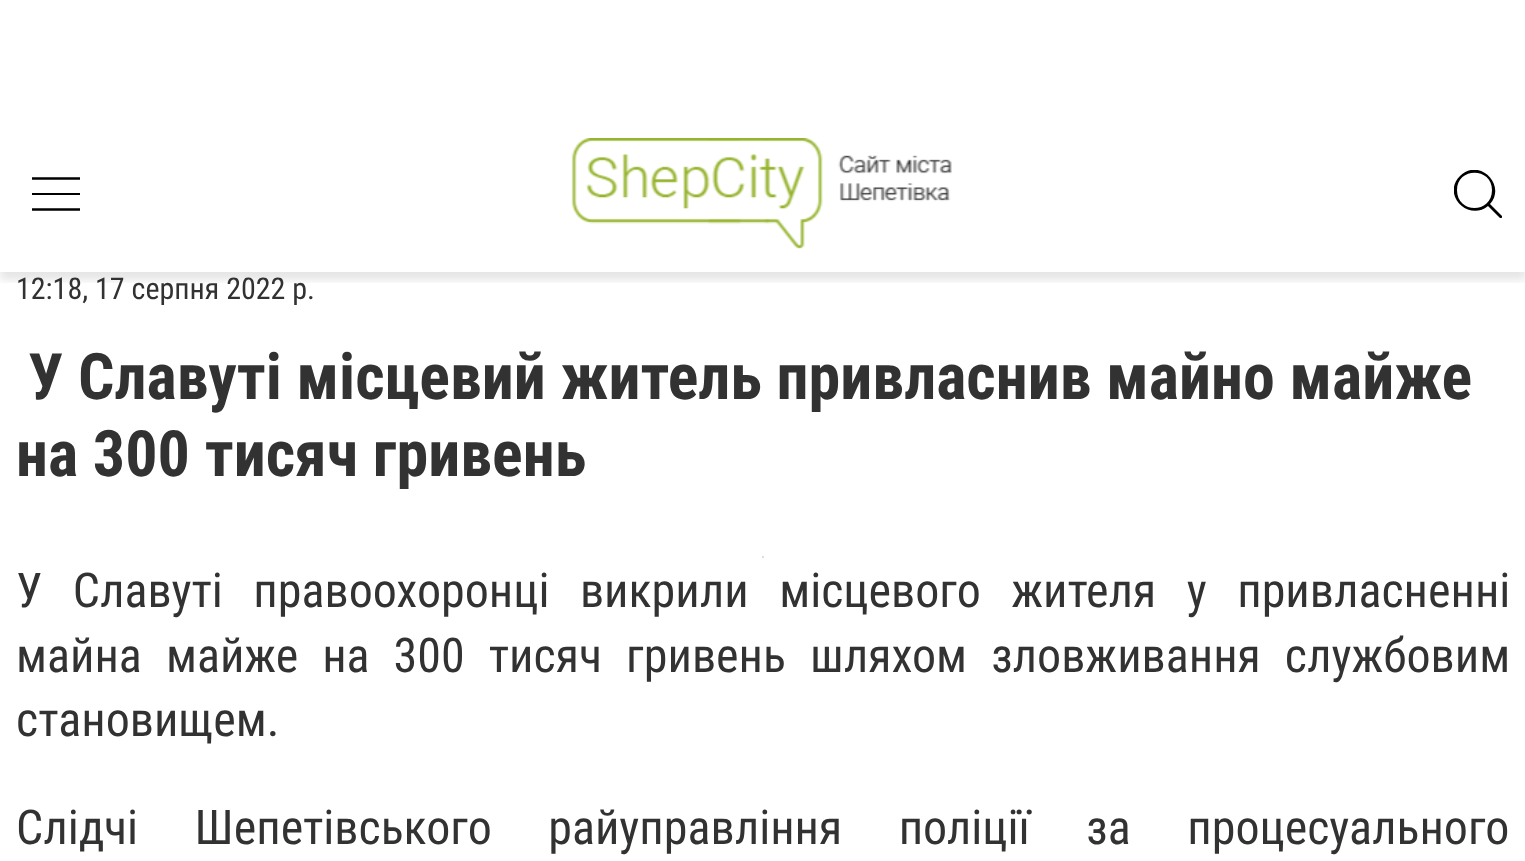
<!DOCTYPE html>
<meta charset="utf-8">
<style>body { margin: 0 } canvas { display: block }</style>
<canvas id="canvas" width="1525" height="861"></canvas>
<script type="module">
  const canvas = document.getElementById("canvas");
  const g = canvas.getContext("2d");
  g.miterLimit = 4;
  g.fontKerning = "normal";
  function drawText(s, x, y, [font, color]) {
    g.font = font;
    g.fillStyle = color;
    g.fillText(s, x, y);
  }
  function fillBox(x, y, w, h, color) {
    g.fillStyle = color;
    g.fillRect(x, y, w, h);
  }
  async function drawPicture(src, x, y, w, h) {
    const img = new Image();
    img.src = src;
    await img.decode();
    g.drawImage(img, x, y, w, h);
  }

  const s1 = ["30px Roboto Condensed", "#323232"];
  const s2 = ["bold 64px Roboto Condensed", "#323232"];
  const s3 = ["48px Roboto Condensed", "#323232"];

  fillBox(0, 0, 1525, 861, "#FFFFFF");
  g.save();
  g.beginPath();
  g.rect(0, 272, 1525, 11);
  g.clip();
  g.fillStyle = "rgba(0, 0, 0, 0.1)";
  g.filter = "blur(4px)";
  g.beginPath();
  g.rect(0, 114, 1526, 166);
  g.fill();
  g.filter = "none";
  g.restore();
  g.beginPath();
  g.moveTo(32, 178.5);
  g.lineTo(80, 178.5);
  g.strokeStyle = "#000000";
  g.lineWidth = 2.4;
  g.stroke();
  fillBox(32, 193, 48, 2, "#000000");
  g.beginPath();
  g.moveTo(32, 209.5);
  g.lineTo(80, 209.5);
  g.stroke();
  await drawPicture("pic1.png", 571, 138, 381, 111);
  g.save();
  g.beginPath();
  g.rect(1454, 170, 48, 48);
  g.clip();
  g.beginPath();
  g.moveTo(1502, 216);
  g.lineTo(1490, 204);
  g.bezierCurveTo(1507, 185, 1479, 157, 1460, 176);
  g.bezierCurveTo(1441, 195, 1469, 222, 1488, 206);
  g.lineTo(1500, 218);
  g.bezierCurveTo(1501, 219, 1503, 217, 1502, 216);
  g.closePath();
  g.moveTo(1457, 190);
  g.bezierCurveTo(1457, 167, 1492, 167, 1492, 190);
  g.bezierCurveTo(1492, 214, 1457, 214, 1457, 190);
  g.closePath();
  g.fill();
  g.restore();
  drawText("12:18, 17 серпня 2022 р.", 16, 299, s1);
  drawText("У Славуті місцевий житель привласнив майно майже", 28, 399, s2);
  drawText("на 300 тисяч гривень", 16, 476, s2);
  fillBox(762, 556, 2, 2, "#DCDCDC");
  g.wordSpacing = "19.5px";
  drawText("У Славуті правоохоронці викрили місцевого жителя у привласненні", 16, 607, s3);
  g.wordSpacing = "13px";
  drawText("майна майже на 300 тисяч гривень шляхом зловживання службовим", 16, 672, s3);
  g.wordSpacing = "0px";
  drawText("становищем.", 16, 736, s3);
  g.wordSpacing = "45.5px";
  drawText("Слідчі Шепетівського райуправління поліції за процесуального", 16, 844, s3);
</script>
